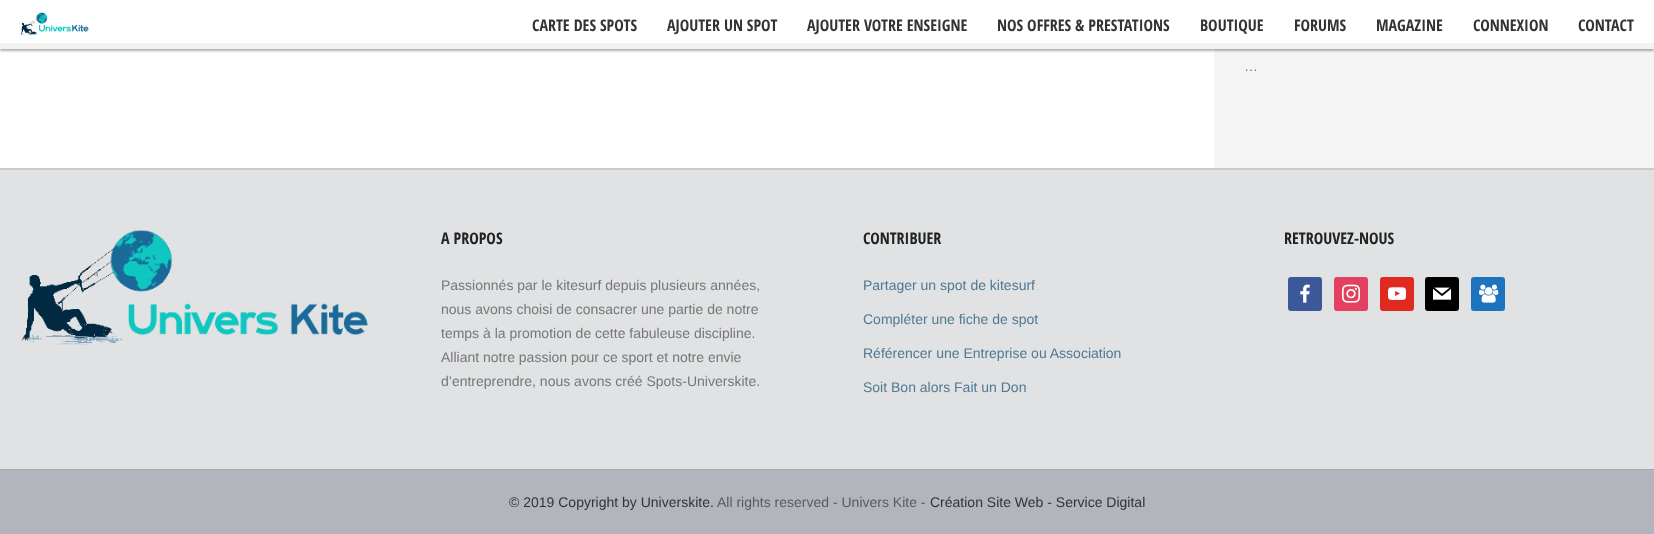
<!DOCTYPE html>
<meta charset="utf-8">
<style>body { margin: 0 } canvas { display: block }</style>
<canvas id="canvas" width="1654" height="534"></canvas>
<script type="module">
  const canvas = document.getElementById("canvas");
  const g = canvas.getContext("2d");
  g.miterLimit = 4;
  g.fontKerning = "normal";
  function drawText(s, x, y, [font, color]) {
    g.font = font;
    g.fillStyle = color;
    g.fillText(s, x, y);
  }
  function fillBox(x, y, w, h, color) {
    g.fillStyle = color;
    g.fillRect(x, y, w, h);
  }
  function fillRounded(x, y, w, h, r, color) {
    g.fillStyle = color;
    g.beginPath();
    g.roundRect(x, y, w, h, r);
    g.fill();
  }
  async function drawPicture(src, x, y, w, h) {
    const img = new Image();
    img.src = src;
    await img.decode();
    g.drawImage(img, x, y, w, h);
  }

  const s1 = ["bold 16px Open Sans Condensed", "#333333"];
  const s2 = ["14px Liberation Sans", "#777777"];
  const s3 = ["bold 16px Open Sans Condensed", "#222222"];
  const s4 = ["14px Liberation Sans", "#507992"];
  const s5 = ["14px Liberation Sans", "#333333"];
  const s6 = ["14px Liberation Sans", "#595B5D"];

  fillBox(0, 0, 1654, 534, "#FFFFFF");
  fillBox(1214, 49, 440, 119, "#F5F5F5");
  g.fillStyle = "rgba(0, 0, 0, 0.3)";
  g.filter = "blur(1px)";
  g.beginPath();
  g.rect(0, 2, 1654, 49);
  g.fill();
  g.filter = "none";
  fillBox(0, 0, 1654, 43, "#FFFFFF");
  fillBox(0, 43, 1654, 6, "#F2F2F2");
  await drawPicture("pic1.png", 20, 12, 69, 24);
  drawText("CARTE DES SPOTS", 532, 31, s1);
  drawText("AJOUTER UN SPOT", 667, 31, s1);
  drawText("AJOUTER VOTRE ENSEIGNE", 807, 31, s1);
  drawText("NOS OFFRES & PRESTATIONS", 997, 31, s1);
  drawText("BOUTIQUE", 1200, 31, s1);
  drawText("FORUMS", 1294, 31, s1);
  drawText("MAGAZINE", 1376, 31, s1);
  drawText("CONNEXION", 1473, 31, s1);
  drawText("CONTACT", 1578, 31, s1);
  drawText("…", 1244, 71, s2);
  fillBox(0, 170, 1654, 299, "#E0E2E4");
  fillBox(0, 168, 1654, 2, "#CACBCD");
  await drawPicture("pic2.png", 21, 230, 347, 115);
  drawText("A PROPOS", 441, 244, s3);
  drawText("Passionnés par le kitesurf depuis plusieurs années,", 441, 290, s2);
  drawText("nous avons choisi de consacrer une partie de notre", 441, 314, s2);
  drawText("temps à la promotion de cette fabuleuse discipline.", 441, 338, s2);
  drawText("Alliant notre passion pour ce sport et notre envie", 441, 362, s2);
  drawText("d’entreprendre, nous avons créé Spots-Universkite.", 441, 386, s2);
  drawText("CONTRIBUER", 863, 244, s3);
  drawText("Partager un spot de kitesurf", 863, 290, s4);
  drawText("Compléter une fiche de spot", 863, 324, s4);
  drawText("Référencer une Entreprise ou Association", 863, 358, s4);
  drawText("Soit Bon alors Fait un Don", 863, 392, s4);
  drawText("RETROUVEZ-NOUS", 1284, 244, s3);
  fillRounded(1288, 277, 34, 34, 3, "#3B5998");
  await drawPicture("pic3.png", 1300, 284, 10, 19);
  fillRounded(1334, 277, 34, 34, 3, "#E4405F");
  await drawPicture("pic4.png", 1342, 284, 18, 19);
  fillRounded(1380, 277, 34, 34, 3, "#E02A20");
  await drawPicture("pic5.png", 1388, 287, 19, 13);
  fillRounded(1425, 277, 34, 34, 3, "#000000");
  await drawPicture("pic6.png", 1433, 287, 19, 13);
  fillRounded(1471, 277, 34, 34, 3, "#1E73BE");
  await drawPicture("pic7.png", 1479, 284, 20, 19);
  fillBox(0, 470, 1654, 64, "#B2B6BC");
  fillBox(0, 469, 1654, 1, "#A4A9B0");
  drawText("© 2019 Copyright by Universkite.", 509, 507, s5);
  drawText("All rights reserved - Univers Kite -", 717, 507, s6);
  drawText("Création Site Web - Service Digital", 930, 507, s5);
</script>
